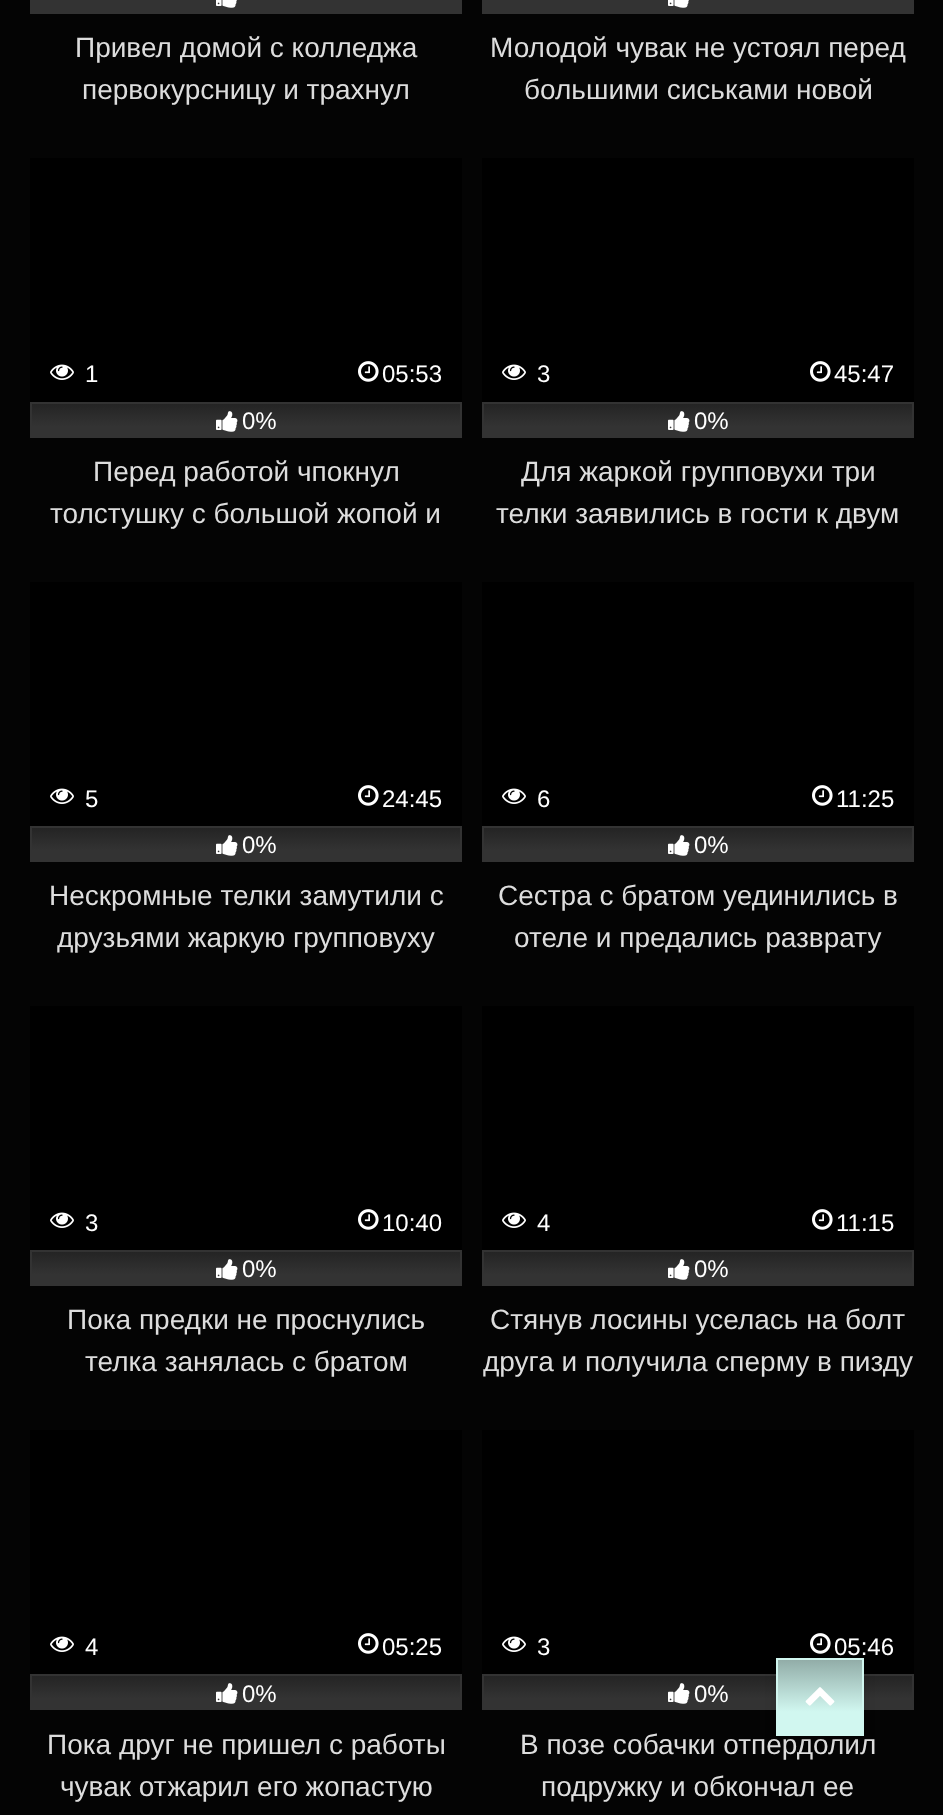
<!DOCTYPE html>
<meta charset="utf-8">
<style>body { margin: 0 } canvas { display: block }</style>
<canvas id="canvas" width="943" height="1815"></canvas>
<script type="module">
  const canvas = document.getElementById("canvas");
  const g = canvas.getContext("2d");
  g.miterLimit = 4;
  g.fontKerning = "normal";
  function drawText(s, x, y, [font, color]) {
    g.font = font;
    g.fillStyle = color;
    g.fillText(s, x, y);
  }
  function fillBox(x, y, w, h, color) {
    g.fillStyle = color;
    g.fillRect(x, y, w, h);
  }
  async function drawPicture(src, x, y, w, h) {
    const img = new Image();
    img.src = src;
    await img.decode();
    g.drawImage(img, x, y, w, h);
  }
  let gradient;

  const s1 = ["28px Liberation Sans", "#DDDDDD"];
  const s2 = ["24px Liberation Sans", "#FFFFFF"];

  fillBox(0, 0, 943, 1815, "#040404");
  g.fillStyle = "#333333";
  g.beginPath();
  g.rect(31, -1, 430, 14);
  g.fill();
  g.strokeStyle = "#333333";
  g.lineWidth = 2;
  g.stroke();
  await drawPicture("pic1.png", 216, 0, 21, 8);
  drawText("Привел домой с колледжа", 75, 57, s1);
  drawText("первокурсницу и трахнул", 82, 99, s1);
  g.fillStyle = "#333333";
  g.beginPath();
  g.rect(483, -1, 430, 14);
  g.fill();
  g.stroke();
  await drawPicture("pic1.png", 668, 0, 21, 8);
  drawText("Молодой чувак не устоял перед", 490, 57, s1);
  drawText("большими сиськами новой", 524, 99, s1);
  fillBox(30, 158, 432, 244, "#000000");
  await drawPicture("pic2.png", 50, 364, 24, 16);
  drawText("1", 85, 382, s2);
  await drawPicture("pic3.png", 358, 361, 21, 21);
  drawText("05:53", 382, 382, s2);
  gradient = g.createLinearGradient(246, 404, 246, 436);
  gradient.addColorStop(0, "#242424");
  gradient.addColorStop(0.7, "#333333");
  g.fillStyle = gradient;
  g.fillRect(32, 404, 428, 32);
  g.strokeRect(31, 403, 430, 34);
  await drawPicture("pic4.png", 216, 411, 22, 21);
  drawText("0%", 242, 429, s2);
  drawText("Перед работой чпокнул", 93, 481, s1);
  drawText("толстушку с большой жопой и", 50, 523, s1);
  fillBox(482, 158, 432, 244, "#000000");
  await drawPicture("pic2.png", 502, 364, 24, 16);
  drawText("3", 537, 382, s2);
  await drawPicture("pic3.png", 810, 361, 21, 21);
  drawText("45:47", 834, 382, s2);
  gradient = g.createLinearGradient(698, 404, 698, 436);
  gradient.addColorStop(0, "#242424");
  gradient.addColorStop(0.7, "#333333");
  g.fillStyle = gradient;
  g.fillRect(484, 404, 428, 32);
  g.strokeRect(483, 403, 430, 34);
  await drawPicture("pic4.png", 668, 411, 22, 21);
  drawText("0%", 694, 429, s2);
  drawText("Для жаркой групповухи три", 521, 481, s1);
  drawText("телки заявились в гости к двум", 496, 523, s1);
  fillBox(30, 582, 432, 244, "#000000");
  await drawPicture("pic2.png", 50, 788, 24, 16);
  drawText("5", 85, 807, s2);
  await drawPicture("pic3.png", 358, 785, 21, 21);
  drawText("24:45", 382, 807, s2);
  gradient = g.createLinearGradient(246, 828, 246, 860);
  gradient.addColorStop(0, "#242424");
  gradient.addColorStop(0.7, "#333333");
  g.fillStyle = gradient;
  g.fillRect(32, 828, 428, 32);
  g.strokeRect(31, 827, 430, 34);
  await drawPicture("pic4.png", 216, 835, 22, 21);
  drawText("0%", 242, 853, s2);
  drawText("Нескромные телки замутили с", 49, 905, s1);
  drawText("друзьями жаркую групповуху", 57, 947, s1);
  fillBox(482, 582, 432, 244, "#000000");
  await drawPicture("pic2.png", 502, 788, 24, 16);
  drawText("6", 537, 807, s2);
  await drawPicture("pic3.png", 812, 785, 21, 21);
  drawText("11:25", 836, 807, s2);
  gradient = g.createLinearGradient(698, 828, 698, 860);
  gradient.addColorStop(0, "#242424");
  gradient.addColorStop(0.7, "#333333");
  g.fillStyle = gradient;
  g.fillRect(484, 828, 428, 32);
  g.strokeRect(483, 827, 430, 34);
  await drawPicture("pic4.png", 668, 835, 22, 21);
  drawText("0%", 694, 853, s2);
  drawText("Сестра с братом уединились в", 498, 905, s1);
  drawText("отеле и предались разврату", 514, 947, s1);
  fillBox(30, 1006, 432, 244, "#000000");
  await drawPicture("pic2.png", 50, 1212, 24, 16);
  drawText("3", 85, 1231, s2);
  await drawPicture("pic3.png", 358, 1209, 21, 21);
  drawText("10:40", 382, 1231, s2);
  gradient = g.createLinearGradient(246, 1252, 246, 1284);
  gradient.addColorStop(0, "#242424");
  gradient.addColorStop(0.7, "#333333");
  g.fillStyle = gradient;
  g.fillRect(32, 1252, 428, 32);
  g.strokeRect(31, 1251, 430, 34);
  await drawPicture("pic4.png", 216, 1259, 22, 21);
  drawText("0%", 242, 1277, s2);
  drawText("Пока предки не проснулись", 67, 1329, s1);
  drawText("телка занялась с братом", 85, 1371, s1);
  fillBox(482, 1006, 432, 244, "#000000");
  await drawPicture("pic2.png", 502, 1212, 24, 16);
  drawText("4", 537, 1231, s2);
  await drawPicture("pic3.png", 812, 1209, 21, 21);
  drawText("11:15", 836, 1231, s2);
  gradient = g.createLinearGradient(698, 1252, 698, 1284);
  gradient.addColorStop(0, "#242424");
  gradient.addColorStop(0.7, "#333333");
  g.fillStyle = gradient;
  g.fillRect(484, 1252, 428, 32);
  g.strokeRect(483, 1251, 430, 34);
  await drawPicture("pic4.png", 668, 1259, 22, 21);
  drawText("0%", 694, 1277, s2);
  drawText("Стянув лосины уселась на болт", 490, 1329, s1);
  drawText("друга и получила сперму в пизду", 483, 1371, s1);
  fillBox(30, 1430, 432, 244, "#000000");
  await drawPicture("pic2.png", 50, 1636, 24, 16);
  drawText("4", 85, 1655, s2);
  await drawPicture("pic3.png", 358, 1633, 21, 21);
  drawText("05:25", 382, 1655, s2);
  gradient = g.createLinearGradient(246, 1676, 246, 1708);
  gradient.addColorStop(0, "#242424");
  gradient.addColorStop(0.7, "#333333");
  g.fillStyle = gradient;
  g.fillRect(32, 1676, 428, 32);
  g.strokeRect(31, 1675, 430, 34);
  await drawPicture("pic4.png", 216, 1683, 22, 21);
  drawText("0%", 242, 1702, s2);
  drawText("Пока друг не пришел с работы", 47, 1754, s1);
  drawText("чувак отжарил его жопастую", 60, 1796, s1);
  fillBox(482, 1430, 432, 244, "#000000");
  await drawPicture("pic2.png", 502, 1636, 24, 16);
  drawText("3", 537, 1655, s2);
  await drawPicture("pic3.png", 810, 1633, 21, 21);
  drawText("05:46", 834, 1655, s2);
  gradient = g.createLinearGradient(698, 1676, 698, 1708);
  gradient.addColorStop(0, "#242424");
  gradient.addColorStop(0.7, "#333333");
  g.fillStyle = gradient;
  g.fillRect(484, 1676, 428, 32);
  g.strokeRect(483, 1675, 430, 34);
  await drawPicture("pic4.png", 668, 1683, 22, 21);
  drawText("0%", 694, 1702, s2);
  drawText("В позе собачки отпердолил", 520, 1754, s1);
  drawText("подружку и обкончал ее", 541, 1796, s1);
  g.fillStyle = "rgba(0, 0, 0, 0.12)";
  g.filter = "blur(6px)";
  g.beginPath();
  g.rect(776, 1660, 88, 78);
  g.fill();
  g.filter = "none";
  gradient = g.createLinearGradient(820, 1660, 820, 1734);
  gradient.addColorStop(0, "#92ADA8");
  gradient.addColorStop(0.7, "#D1F7F0");
  g.fillStyle = gradient;
  g.fillRect(778, 1660, 84, 74);
  g.strokeStyle = "#D1F7F0";
  g.strokeRect(777, 1659, 86, 76);
  await drawPicture("pic5.png", 805, 1687, 30, 19);
</script>
